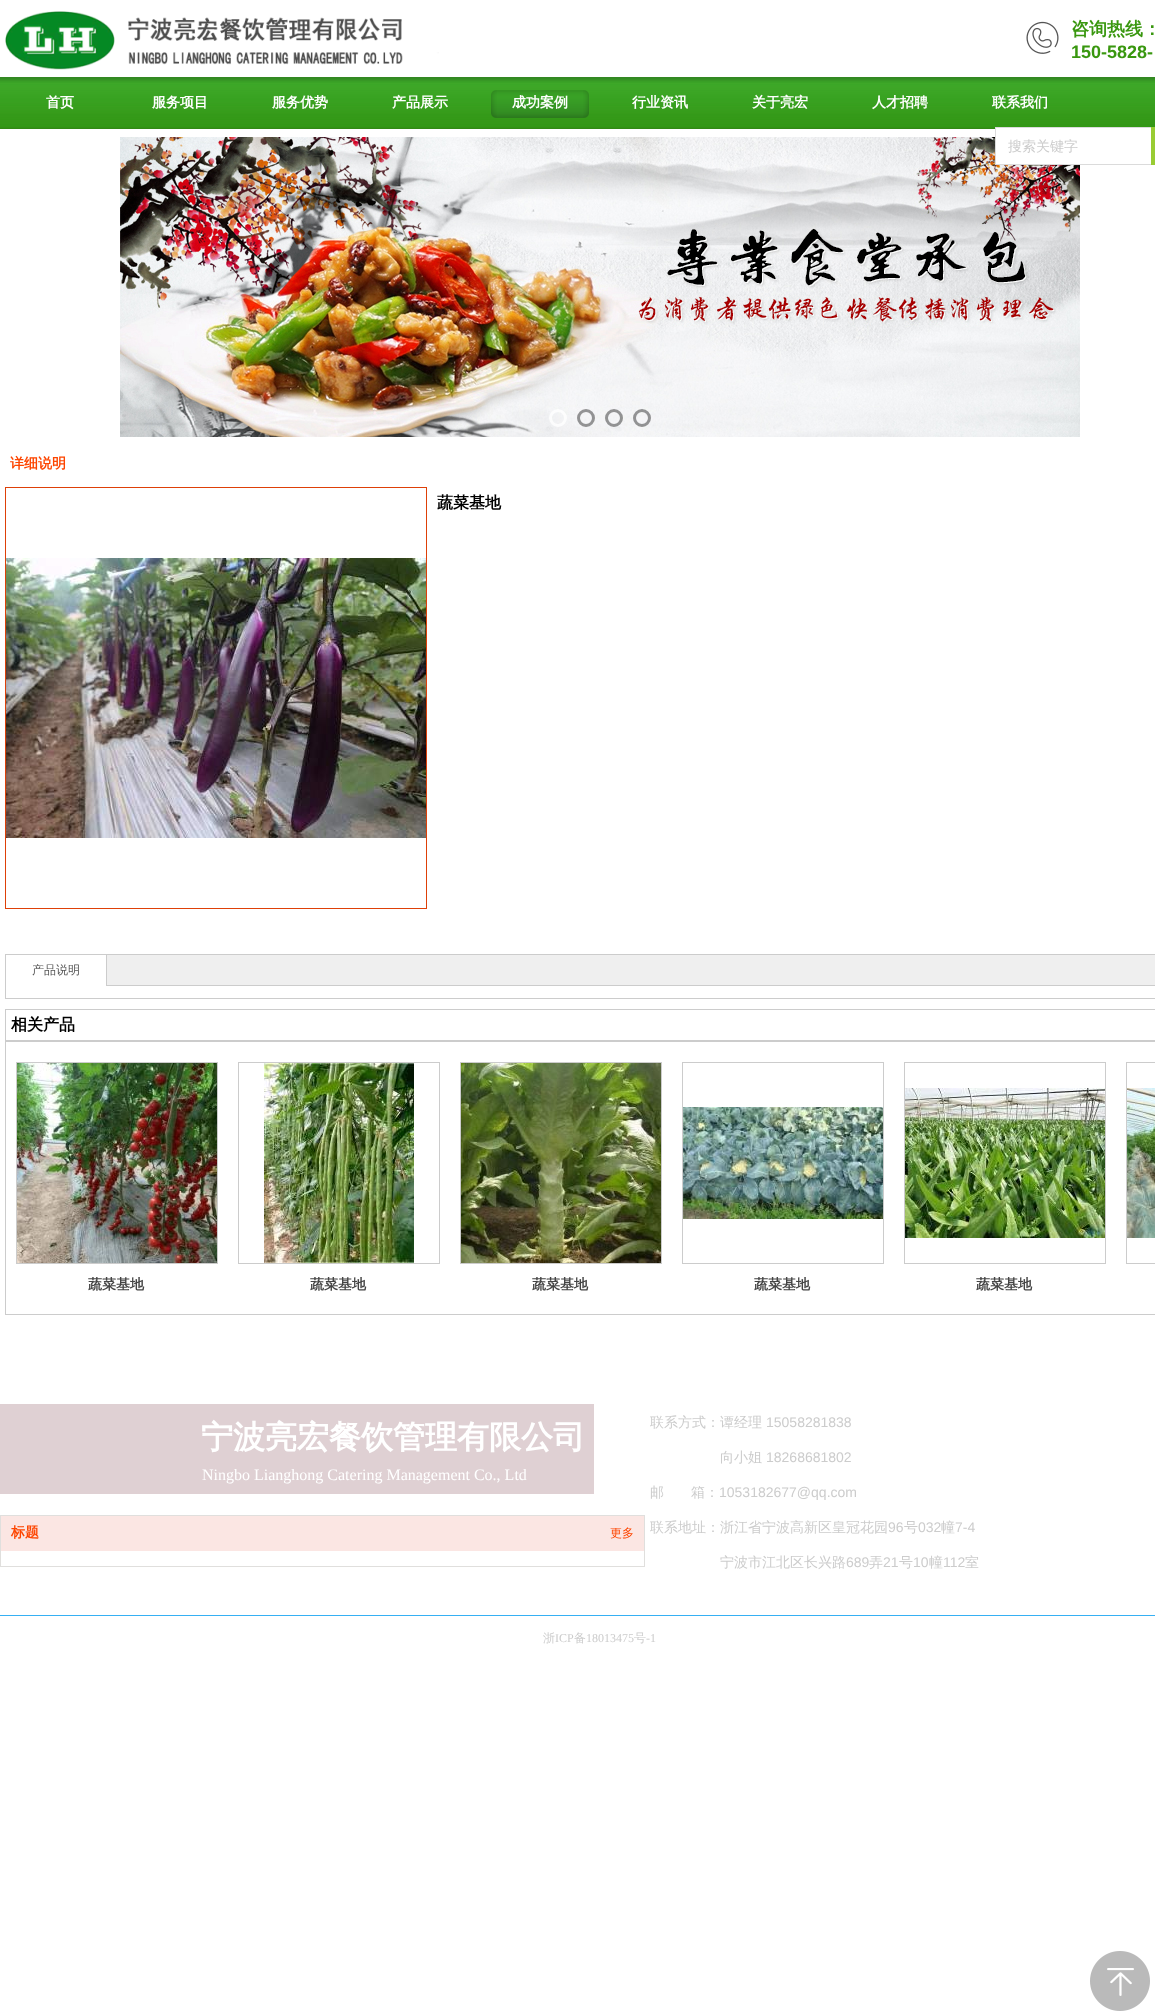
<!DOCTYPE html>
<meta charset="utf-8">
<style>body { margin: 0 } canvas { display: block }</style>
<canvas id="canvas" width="1155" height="2016"></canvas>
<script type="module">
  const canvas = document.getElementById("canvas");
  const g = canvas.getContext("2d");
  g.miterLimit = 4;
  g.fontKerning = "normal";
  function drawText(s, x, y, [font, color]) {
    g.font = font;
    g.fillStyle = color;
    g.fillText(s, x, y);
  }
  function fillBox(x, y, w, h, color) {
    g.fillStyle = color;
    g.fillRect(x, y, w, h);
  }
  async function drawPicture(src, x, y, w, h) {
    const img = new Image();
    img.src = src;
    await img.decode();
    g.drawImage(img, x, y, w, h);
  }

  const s1 = ["bold 14px WenQuanYi Zen Hei", "#FFFFFF"];
  const s2 = ["bold 18px WenQuanYi Zen Hei", "#39970F"];
  const s3 = ["bold 18px Liberation Sans", "#39970F"];
  const s4 = ["500 14px WenQuanYi Zen Hei", "#CCCCCC"];
  const s5 = ["bold 14px WenQuanYi Zen Hei", "#FD4500"];
  const s6 = ["bold 16px WenQuanYi Zen Hei", "#000000"];
  const s7 = ["500 12px WenQuanYi Zen Hei", "#555555"];
  const s8 = ["bold 14px WenQuanYi Zen Hei", "#444444"];
  const s9 = ["bold 32px WenQuanYi Zen Hei", "#FFFFFF"];
  const s10 = ["16px Liberation Serif", "#FFFFFF"];
  const s11 = ["14px Liberation Sans", "#CCCCCC"];
  const s12 = ["500 12px WenQuanYi Zen Hei", "#FD4500"];
  const s13 = ["500 12px WenQuanYi Zen Hei", "#CCCCCC"];
  const s14 = ["12px Liberation Serif", "#CCCCCC"];

  fillBox(0, 0, 1155, 2016, "#FFFFFF");
  await drawPicture("pic1.png", 0, 77, 1155, 52);
  drawText("首页", 46, 107, s1);
  drawText("服务项目", 152, 107, s1);
  drawText("服务优势", 272, 107, s1);
  drawText("产品展示", 392, 107, s1);
  await drawPicture("pic2.png", 491, 90, 6, 28);
  await drawPicture("pic3.png", 497, 90, 86, 28);
  drawText("成功案例", 512, 107, s1);
  await drawPicture("pic4.png", 583, 90, 6, 28);
  drawText("行业资讯", 632, 107, s1);
  drawText("关于亮宏", 752, 107, s1);
  drawText("人才招聘", 872, 107, s1);
  drawText("联系我们", 992, 107, s1);
  await drawPicture("pic5.png", 120, 137, 960, 300);
  g.beginPath();
  g.arc(558, 418, 7.5, 0, Math.PI * 2);
  g.strokeStyle = "rgba(255, 255, 255, 0.8)";
  g.lineWidth = 3;
  g.stroke();
  g.beginPath();
  g.arc(586, 418, 7.5, 0, Math.PI * 2);
  g.strokeStyle = "rgba(0, 0, 0, 0.4)";
  g.stroke();
  g.beginPath();
  g.arc(614, 418, 7.5, 0, Math.PI * 2);
  g.stroke();
  g.beginPath();
  g.arc(642, 418, 7.5, 0, Math.PI * 2);
  g.stroke();
  await drawPicture("pic6.png", 5, 11, 434, 59);
  await drawPicture("pic7.png", 1026, 21, 33, 33);
  drawText("咨询热线：", 1071, 35, s2);
  drawText("150-5828-", 1071, 58, s3);
  fillBox(996, 128, 155, 36, "#FFFFFF");
  g.strokeStyle = "#DBDBDB";
  g.lineWidth = 1;
  g.strokeRect(995.5, 127.5, 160, 37);
  drawText("搜索关键字", 1008, 151, s4);
  fillBox(1151, 127, 4, 38, "#99CC33");
  drawText("详细说明", 10, 468, s5);
  g.strokeStyle = "#DE4008";
  g.strokeRect(5.5, 487.5, 421, 421);
  await drawPicture("pic8.png", 6, 558, 420, 280);
  drawText("蔬菜基地", 437, 508, s6);
  g.strokeStyle = "#CCCCCC";
  g.strokeRect(5.5, 954.5, 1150, 44);
  fillBox(107, 955, 1048, 30, "#EFEFEF");
  fillBox(107, 985, 1048, 1, "#CCCCCC");
  fillBox(106, 955, 1, 31, "#CCCCCC");
  drawText("产品说明", 32, 974, s7);
  g.strokeRect(5.5, 1009.5, 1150, 305);
  fillBox(6, 1040, 1149, 2, "#CCCCCC");
  drawText("相关产品", 11, 1030, s6);
  g.strokeRect(1126.5, 1062.5, 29, 201);
  await drawPicture("pic9.png", 1127, 1088, 28, 150);
  g.strokeRect(16.5, 1062.5, 201, 201);
  await drawPicture("pic10.png", 17, 1063, 200, 200);
  drawText("蔬菜基地", 88, 1289, s8);
  g.strokeRect(238.5, 1062.5, 201, 201);
  await drawPicture("pic11.png", 264, 1063, 150, 200);
  drawText("蔬菜基地", 310, 1289, s8);
  g.strokeRect(460.5, 1062.5, 201, 201);
  await drawPicture("pic12.png", 461, 1063, 200, 200);
  drawText("蔬菜基地", 532, 1289, s8);
  g.strokeRect(682.5, 1062.5, 201, 201);
  await drawPicture("pic13.png", 683, 1107, 200, 112);
  drawText("蔬菜基地", 754, 1289, s8);
  g.strokeRect(904.5, 1062.5, 201, 201);
  await drawPicture("pic14.png", 905, 1088, 200, 150);
  drawText("蔬菜基地", 976, 1289, s8);
  fillBox(0, 1404, 594, 90, "#DFD0D3");
  drawText("宁波亮宏餐饮管理有限公司", 201, 1448, s9);
  drawText("Ningbo Lianghong Catering Management Co., Ltd", 202, 1480, s10);
  drawText("联系方式：谭经理", 650, 1427, s4);
  drawText("15058281838", 766, 1427, s11);
  drawText("向小姐", 720, 1462, s4);
  drawText("18268681802", 766, 1462, s11);
  drawText("邮", 650, 1497, s4);
  drawText("箱：", 691, 1497, s4);
  drawText("1053182677@qq.com", 719, 1497, s11);
  drawText("联系地址：浙江省宁波高新区皇冠花园", 650, 1532, s4);
  drawText("96", 888, 1532, s11);
  drawText("号", 904, 1532, s4);
  drawText("032", 918, 1532, s11);
  drawText("幢", 941, 1532, s4);
  drawText("7-4", 955, 1532, s11);
  drawText("宁波市江北区长兴路", 720, 1567, s4);
  drawText("689", 846, 1567, s11);
  drawText("弄", 869, 1567, s4);
  drawText("21", 883, 1567, s11);
  drawText("号", 899, 1567, s4);
  drawText("10", 913, 1567, s11);
  drawText("幢", 929, 1567, s4);
  drawText("112", 943, 1567, s11);
  drawText("室", 965, 1567, s4);
  g.strokeStyle = "#E0DFDD";
  g.strokeRect(0.5, 1515.5, 644, 51);
  fillBox(1, 1516, 643, 35, "#FBE6E3");
  drawText("标题", 11, 1537, s5);
  drawText("更多", 610, 1537, s12);
  fillBox(0, 1615, 1155, 1, "#36B0F3");
  drawText("浙", 543, 1642, s13);
  drawText("ICP", 555, 1642, s14);
  drawText("备", 574, 1642, s13);
  drawText("18013475", 586, 1642, s14);
  drawText("号", 634, 1642, s13);
  drawText("-1", 646, 1642, s14);
  await drawPicture("pic15.png", 1090, 1951, 60, 60);
</script>
